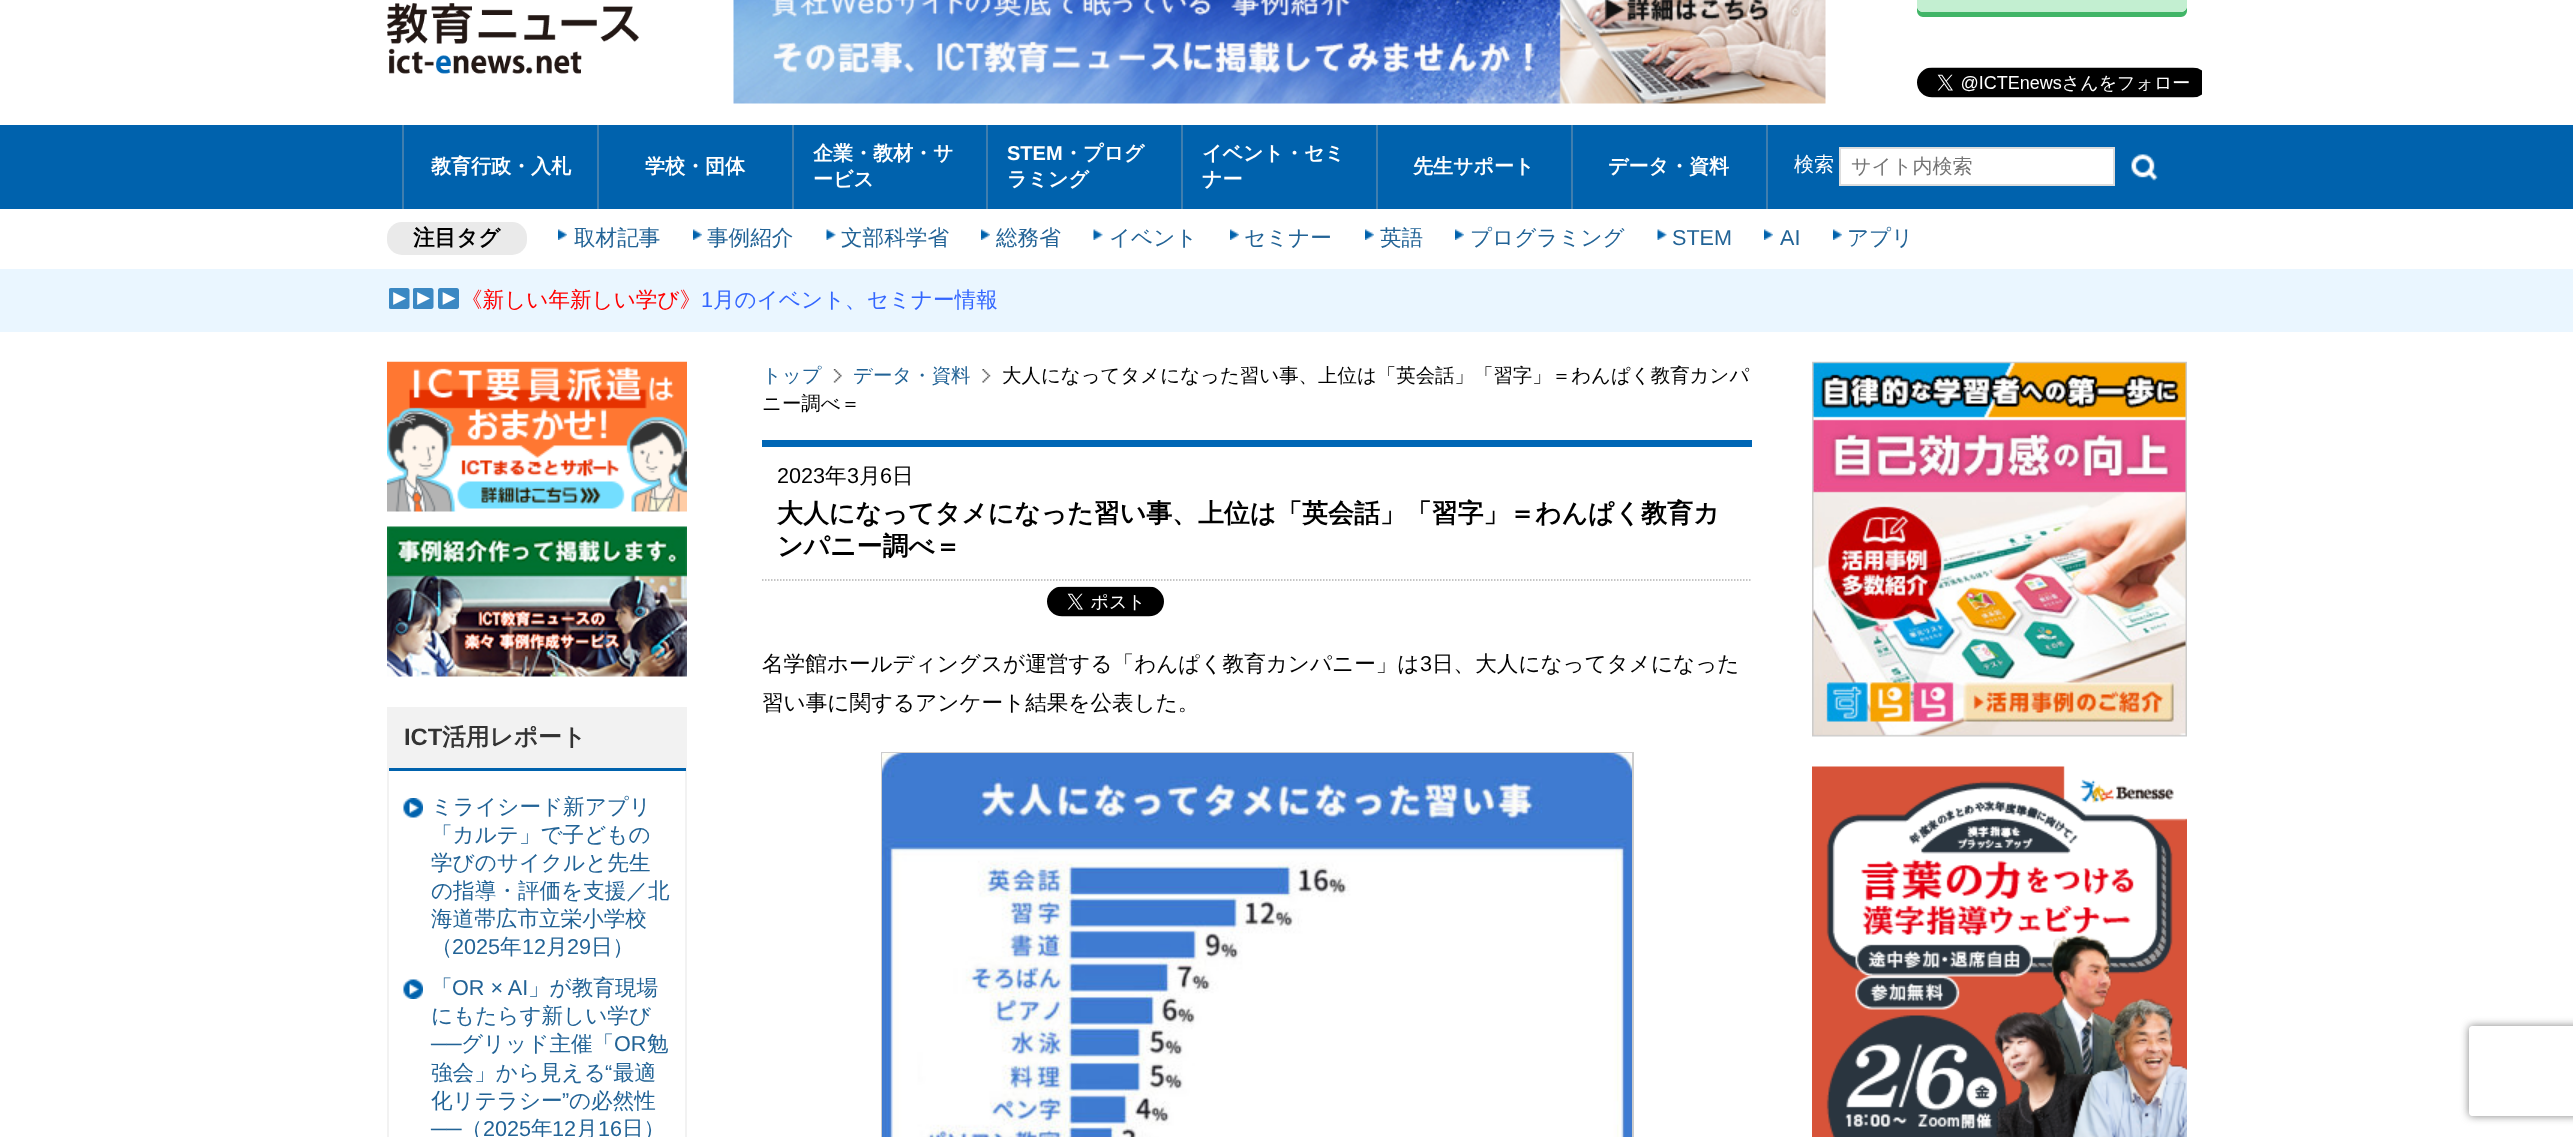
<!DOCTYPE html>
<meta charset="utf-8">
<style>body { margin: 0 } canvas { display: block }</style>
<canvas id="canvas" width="2573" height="1137"></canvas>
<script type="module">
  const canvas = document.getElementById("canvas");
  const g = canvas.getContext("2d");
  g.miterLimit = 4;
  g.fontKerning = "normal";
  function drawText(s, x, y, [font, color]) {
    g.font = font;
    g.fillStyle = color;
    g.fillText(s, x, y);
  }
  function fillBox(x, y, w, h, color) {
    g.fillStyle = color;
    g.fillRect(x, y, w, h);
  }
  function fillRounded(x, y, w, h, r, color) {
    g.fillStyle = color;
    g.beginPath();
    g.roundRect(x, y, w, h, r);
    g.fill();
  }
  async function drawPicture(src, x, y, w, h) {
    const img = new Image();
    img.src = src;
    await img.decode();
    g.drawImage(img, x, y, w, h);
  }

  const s1 = ["bold 20px WenQuanYi Zen Hei", "#FFFFFF"];
  const s2 = ["bold 20px Liberation Sans", "#FFFFFF"];
  const s3 = ["500 20px WenQuanYi Zen Hei", "#FFFFFF"];
  const s4 = ["500 20px WenQuanYi Zen Hei", "#757575"];
  const s5 = ["bold 21.6px WenQuanYi Zen Hei", "#000000"];
  const s6 = ["500 21.6px WenQuanYi Zen Hei", "#226396"];
  const s7 = ["21.6px Liberation Sans", "#226396"];
  const s8 = ["500 21.6px WenQuanYi Zen Hei", "#FF0000"];
  const s9 = ["21.6px Liberation Sans", "#3366FF"];
  const s10 = ["500 21.6px WenQuanYi Zen Hei", "#3366FF"];
  const s11 = ["500 19.45px WenQuanYi Zen Hei", "#226396"];
  const s12 = ["500 19.45px WenQuanYi Zen Hei", "#000000"];
  const s13 = ["21.6px Liberation Sans", "#000000"];
  const s14 = ["500 21.6px WenQuanYi Zen Hei", "#000000"];
  const s15 = ["bold 25.9px WenQuanYi Zen Hei", "#000000"];
  const s16 = ["bold 23.75px Liberation Sans", "#333333"];
  const s17 = ["bold 23.75px WenQuanYi Zen Hei", "#333333"];

  fillBox(0, 0, 2573, 1137, "#FFFFFF");
  await drawPicture("pic1.png", 387, 3, 252, 71);
  await drawPicture("pic2.png", 733, 0, 1093, 104);
  g.fillStyle = "#41B567";
  g.beginPath();
  g.moveTo(1917, 6);
  g.lineTo(1917, 11);
  g.bezierCurveTo(1917, 14, 1920, 17, 1923, 17);
  g.lineTo(2181, 17);
  g.bezierCurveTo(2184, 17, 2187, 14, 2187, 11);
  g.lineTo(2187, 6);
  g.bezierCurveTo(2187, 9, 2184, 12, 2181, 12);
  g.lineTo(1923, 12);
  g.bezierCurveTo(1920, 12, 1917, 9, 1917, 6);
  g.closePath();
  g.fill();
  fillRounded(1917, -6, 270, 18, 6, "#C3EFD1");
  await drawPicture("pic3.png", 1917, 67, 285, 31);
  fillBox(0, 125, 2573, 84, "#0062AD");
  fillBox(402, 125, 2, 84, "#407EAE");
  drawText("教育行政・入札", 431, 173, s1);
  fillBox(597, 125, 2, 84, "#407EAE");
  drawText("学校・団体", 645, 173, s1);
  fillBox(792, 125, 2, 84, "#407EAE");
  drawText("企業・教材・サ", 813, 160, s1);
  drawText("ービス", 813, 186, s1);
  fillBox(986, 125, 2, 84, "#407EAE");
  drawText("STEM", 1007, 160, s2);
  drawText("・プログ", 1063, 160, s1);
  drawText("ラミング", 1007, 186, s1);
  fillBox(1181, 125, 2, 84, "#407EAE");
  drawText("イベント・セミ", 1202, 160, s1);
  drawText("ナー", 1202, 186, s1);
  fillBox(1376, 125, 2, 84, "#407EAE");
  drawText("先生サポート", 1413, 173, s1);
  fillBox(1571, 125, 2, 84, "#407EAE");
  drawText("データ・資料", 1608, 173, s1);
  fillBox(1766, 125, 2, 84, "#407EAE");
  drawText("検索", 1794, 171, s3);
  g.beginPath();
  g.rect(1840, 148, 274, 37);
  g.fill();
  g.strokeStyle = "#DDDDDD";
  g.lineWidth = 2;
  g.stroke();
  drawText("サイト内検索", 1851, 173, s4);
  await drawPicture("pic4.png", 2115, 147, 57, 39);
  fillRounded(387, 222, 140, 33, 15, "#EAEAEA");
  drawText("注目タグ", 413, 245, s5);
  await drawPicture("pic5.png", 558, 229, 9, 11);
  drawText("取材記事", 574, 245, s6);
  await drawPicture("pic6.png", 693, 229, 9, 11);
  drawText("事例紹介", 707, 245, s6);
  await drawPicture("pic7.png", 826, 229, 10, 11);
  drawText("文部科学省", 841, 245, s6);
  await drawPicture("pic6.png", 981, 229, 9, 11);
  drawText("総務省", 996, 245, s6);
  await drawPicture("pic7.png", 1093, 229, 10, 11);
  drawText("イベント", 1109, 245, s6);
  await drawPicture("pic5.png", 1230, 229, 9, 11);
  drawText("セミナー", 1244, 245, s6);
  await drawPicture("pic5.png", 1365, 229, 9, 11);
  drawText("英語", 1380, 245, s6);
  await drawPicture("pic6.png", 1455, 229, 9, 11);
  drawText("プログラミング", 1470, 245, s6);
  await drawPicture("pic7.png", 1657, 229, 10, 11);
  drawText("STEM", 1672, 245, s7);
  await drawPicture("pic6.png", 1764, 229, 9, 11);
  drawText("AI", 1780, 245, s7);
  await drawPicture("pic5.png", 1833, 229, 9, 11);
  drawText("アプリ", 1847, 245, s6);
  fillBox(0, 269, 2573, 63, "#EAF6FF");
  await drawPicture("pic8.png", 389, 288, 21, 21);
  await drawPicture("pic8.png", 413, 288, 21, 21);
  await drawPicture("pic9.png", 438, 288, 21, 21);
  drawText("《新しい年新しい学び》", 461, 307, s8);
  drawText("1", 701, 307, s9);
  drawText("月のイベント、セミナー情報", 713, 307, s10);
  drawText("トップ", 762, 382, s11);
  await drawPicture("pic10.png", 833, 369, 9, 14);
  drawText("データ・資料", 853, 382, s11);
  await drawPicture("pic11.png", 982, 369, 9, 14);
  drawText("大人になってタメになった習い事、上位は「英会話」「習字」＝わんぱく教育カンパ", 1002, 382, s12);
  drawText("ニー調べ＝", 762, 410, s12);
  fillBox(762, 440, 990, 7, "#0066B5");
  g.beginPath();
  g.moveTo(762, 580);
  g.lineTo(1752, 580);
  g.strokeStyle = "#B2B2B2";
  g.lineWidth = 1.5;
  g.setLineDash([1.5, 1.5]);
  g.stroke();
  drawText("2023", 777, 483, s13);
  drawText("年", 825, 483, s14);
  drawText("3", 847, 483, s13);
  drawText("月", 859, 483, s14);
  drawText("6", 880, 483, s13);
  drawText("日", 892, 483, s14);
  drawText("大人になってタメになった習い事、上位は「英会話」「習字」＝わんぱく教育カ", 777, 522, s15);
  drawText("ンパニー調べ＝", 777, 555, s15);
  await drawPicture("pic12.png", 1047, 586, 117, 31);
  drawText("名学館ホールディングスが運営する「わんぱく教育カンパニー」は", 762, 671, s14);
  drawText("3", 1420, 671, s13);
  drawText("日、大人になってタメになった", 1432, 671, s14);
  drawText("習い事に関するアンケート結果を公表した。", 762, 710, s14);
  g.strokeStyle = "#CCCCCC";
  g.lineWidth = 2;
  g.setLineDash([]);
  g.strokeRect(882, 753, 751, 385);
  await drawPicture("pic13.png", 882, 753, 750, 384);
  await drawPicture("pic14.png", 1812, 361, 375, 376);
  await drawPicture("pic15.png", 1812, 766, 375, 371);
  await drawPicture("pic16.png", 387, 361, 300, 151);
  await drawPicture("pic17.png", 387, 526, 300, 151);
  g.strokeStyle = "#F2F2F2";
  g.strokeRect(388, 708, 298, 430);
  fillBox(389, 709, 296, 59, "#F2F2F2");
  fillBox(389, 768, 297, 3, "#0062AD");
  drawText("ICT", 404, 745, s16);
  drawText("活用レポート", 442, 745, s17);
  await drawPicture("pic18.png", 403, 798, 20, 20);
  drawText("ミライシード新アプリ", 431, 814, s6);
  drawText("「カルテ」で子どもの", 431, 842, s6);
  drawText("学びのサイクルと先生", 431, 870, s6);
  drawText("の指導・評価を支援／北", 431, 898, s6);
  drawText("海道帯広市立栄小学校", 431, 926, s6);
  drawText("（", 431, 954, s6);
  drawText("2025", 452, 954, s7);
  drawText("年", 500, 954, s6);
  drawText("12", 522, 954, s7);
  drawText("月", 546, 954, s6);
  drawText("29", 567, 954, s7);
  drawText("日）", 591, 954, s6);
  await drawPicture("pic19.png", 403, 979, 20, 20);
  drawText("「", 431, 995, s6);
  drawText("OR × AI", 452, 995, s7);
  drawText("」が教育現場", 528, 995, s6);
  drawText("にもたらす新しい学び", 431, 1023, s6);
  drawText("──", 431, 1051, s7);
  drawText("グリッド主催「", 461, 1051, s6);
  drawText("OR", 614, 1051, s7);
  drawText("勉", 647, 1051, s6);
  drawText("強会」から見える", 431, 1080, s6);
  drawText("“", 605, 1080, s7);
  drawText("最適", 613, 1080, s6);
  drawText("化リテラシー", 431, 1108, s6);
  drawText("”", 562, 1108, s7);
  drawText("の必然性", 569, 1108, s6);
  drawText("──", 431, 1136, s7);
  drawText("（", 461, 1136, s6);
  drawText("2025", 483, 1136, s7);
  drawText("年", 531, 1136, s6);
  drawText("12", 552, 1136, s7);
  drawText("月", 576, 1136, s6);
  drawText("16", 598, 1136, s7);
  drawText("日）", 622, 1136, s6);
  g.save();
  g.beginPath();
  g.moveTo(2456, 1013);
  g.lineTo(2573, 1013);
  g.lineTo(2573, 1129);
  g.lineTo(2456, 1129);
  g.closePath();
  g.moveTo(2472, 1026);
  g.lineTo(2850, 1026);
  g.bezierCurveTo(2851.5, 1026, 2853, 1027.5, 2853, 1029);
  g.lineTo(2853, 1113);
  g.bezierCurveTo(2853, 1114.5, 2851.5, 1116, 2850, 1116);
  g.lineTo(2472, 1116);
  g.bezierCurveTo(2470.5, 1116, 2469, 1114.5, 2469, 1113);
  g.lineTo(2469, 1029);
  g.bezierCurveTo(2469, 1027.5, 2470.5, 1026, 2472, 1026);
  g.closePath();
  g.clip("evenodd");
  g.fillStyle = "#808080";
  g.filter = "blur(4px)";
  g.beginPath();
  g.roundRect(2469, 1026, 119, 90, 3);
  g.fill();
  g.filter = "none";
  g.restore();
</script>
